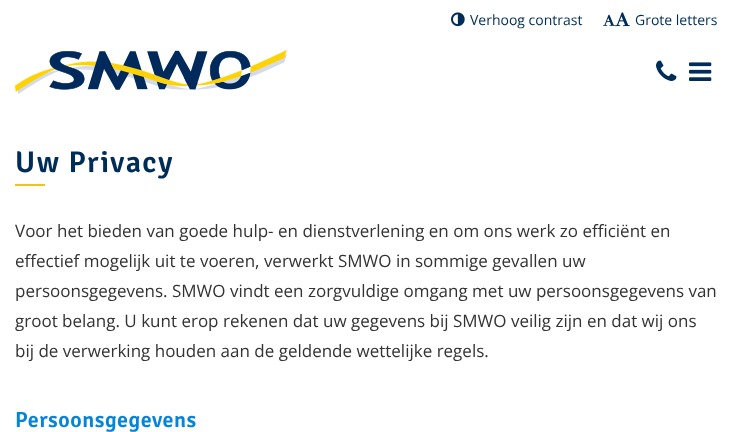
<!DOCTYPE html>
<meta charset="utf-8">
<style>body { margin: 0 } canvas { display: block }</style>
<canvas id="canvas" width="732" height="432"></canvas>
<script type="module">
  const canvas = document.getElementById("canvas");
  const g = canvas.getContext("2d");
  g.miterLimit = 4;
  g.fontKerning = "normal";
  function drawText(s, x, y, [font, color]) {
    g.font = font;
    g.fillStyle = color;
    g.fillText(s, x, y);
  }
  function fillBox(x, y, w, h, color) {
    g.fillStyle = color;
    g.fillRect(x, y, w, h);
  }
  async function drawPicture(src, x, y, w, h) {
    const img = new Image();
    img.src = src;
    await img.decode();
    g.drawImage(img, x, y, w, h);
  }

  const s1 = ["14px Open Sans", "#002D57"];
  const s2 = ["600 30px Signika", "#002D57"];
  const s3 = ["17px Open Sans", "#333333"];
  const s4 = ["600 22px Signika", "#0684D9"];

  fillBox(0, 0, 732, 432, "#FFFFFF");
  await drawPicture("pic1.png", 451, 12, 14, 15);
  drawText("Verhoog contrast", 470, 25, s1);
  await drawPicture("pic2.png", 603, 14, 13, 12);
  await drawPicture("pic3.png", 615, 12, 15, 15);
  drawText("Grote letters", 635, 25, s1);
  await drawPicture("pic4.png", 15, 50, 272, 44);
  await drawPicture("pic5.png", 656, 60, 21, 21);
  await drawPicture("pic6.png", 689, 62, 23, 19);
  g.letterSpacing = "1.5px";
  drawText("Uw Privacy", 15, 172, s2);
  fillBox(15, 184, 30, 2, "#F4C212");
  g.letterSpacing = "0px";
  drawText("Voor het bieden van goede hulp- en dienstverlening en om ons werk zo efficiënt en", 15, 237, s3);
  drawText("effectief mogelijk uit te voeren, verwerkt SMWO in sommige gevallen uw", 15, 267, s3);
  drawText("persoonsgegevens. SMWO vindt een zorgvuldige omgang met uw persoonsgegevens van", 15, 297, s3);
  drawText("groot belang. U kunt erop rekenen dat uw gegevens bij SMWO veilig zijn en dat wij ons", 15, 327, s3);
  drawText("bij de verwerking houden aan de geldende wettelijke regels.", 15, 357, s3);
  g.letterSpacing = "0.5px";
  drawText("Persoonsgegevens", 15, 427, s4);
</script>
